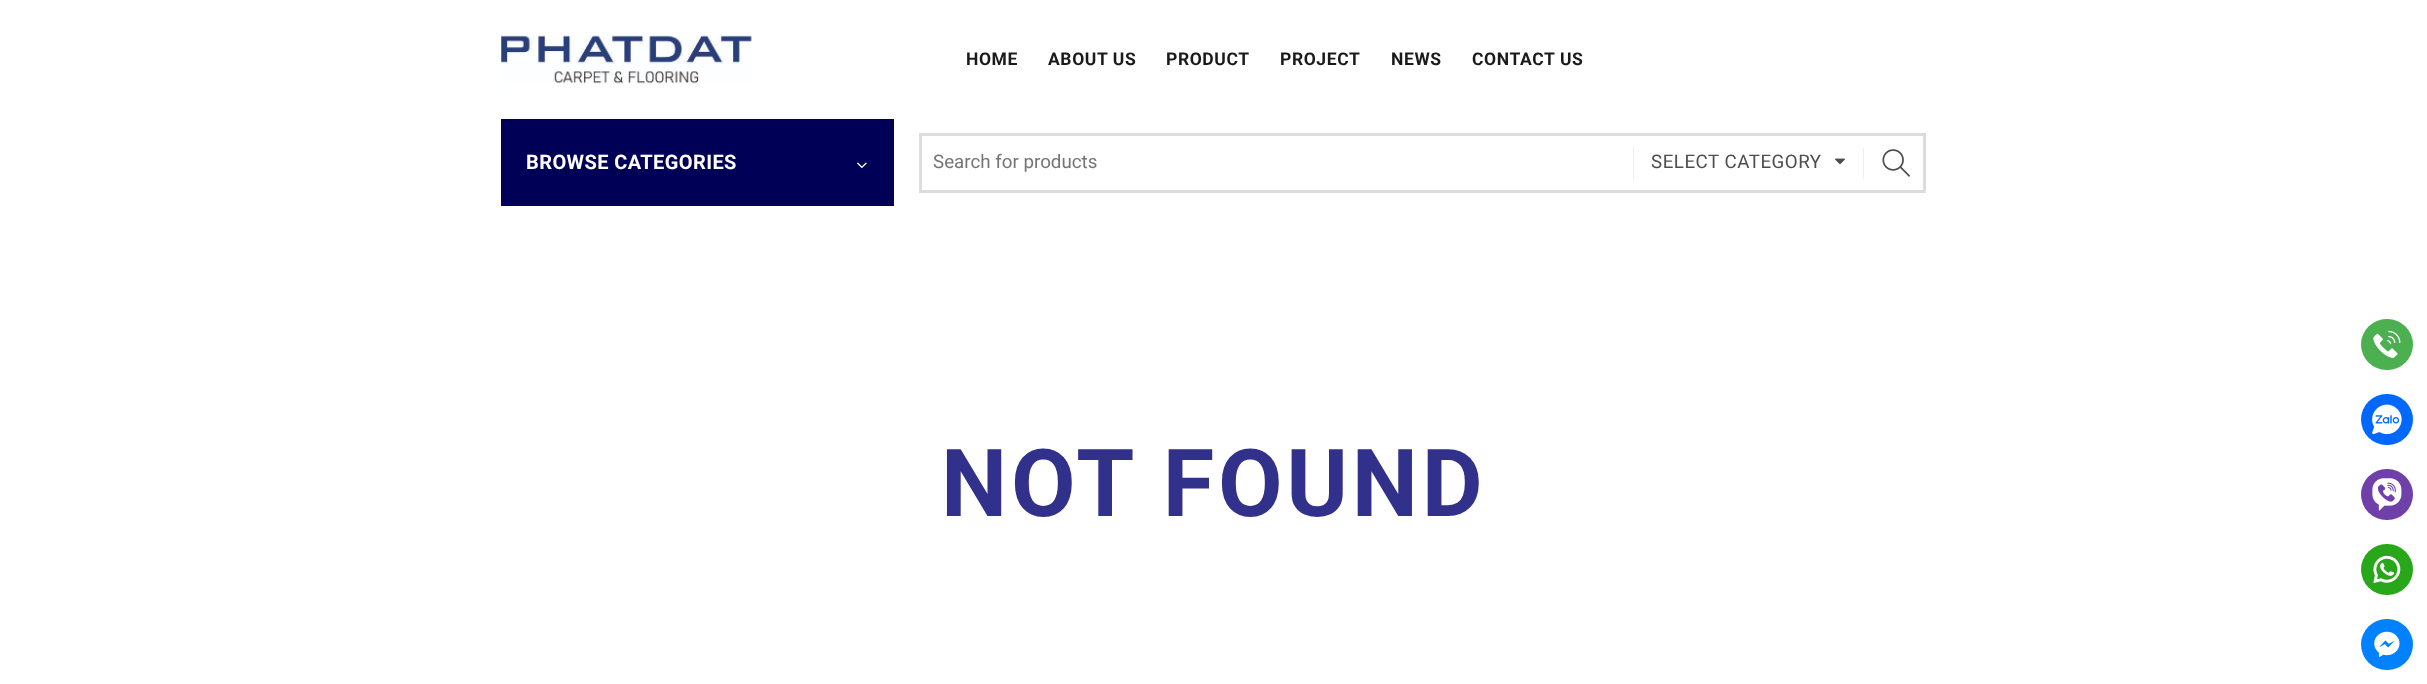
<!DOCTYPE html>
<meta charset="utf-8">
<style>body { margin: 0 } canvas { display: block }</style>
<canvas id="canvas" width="2427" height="684"></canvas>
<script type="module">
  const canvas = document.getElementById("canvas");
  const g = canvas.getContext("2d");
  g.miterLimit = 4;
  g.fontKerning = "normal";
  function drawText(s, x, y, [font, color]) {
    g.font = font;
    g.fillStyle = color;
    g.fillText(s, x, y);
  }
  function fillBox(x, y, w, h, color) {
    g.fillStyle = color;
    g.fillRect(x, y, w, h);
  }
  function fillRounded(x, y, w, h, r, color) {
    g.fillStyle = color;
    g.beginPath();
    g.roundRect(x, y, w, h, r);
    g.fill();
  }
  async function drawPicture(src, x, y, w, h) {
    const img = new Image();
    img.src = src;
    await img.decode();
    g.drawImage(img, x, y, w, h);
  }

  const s1 = ["bold 17.5px Roboto", "#1A1A1A"];
  const s2 = ["bold 20px Roboto", "#FFFFFF"];
  const s3 = ["18.75px Roboto", "#757575"];
  const s4 = ["18.75px Roboto", "#4D4D4D"];
  const s5 = ["bold 93.75px Roboto", "#31318B"];

  fillBox(0, 0, 2427, 684, "#FFFFFF");
  await drawPicture("pic1.png", 501, 35, 251, 49);
  g.letterSpacing = "0.6px";
  drawText("HOME", 966, 65, s1);
  drawText("ABOUT US", 1048, 65, s1);
  drawText("PRODUCT", 1166, 65, s1);
  drawText("PROJECT", 1280, 65, s1);
  drawText("NEWS", 1391, 65, s1);
  drawText("CONTACT US", 1472, 65, s1);
  fillBox(501, 119, 393, 87, "#000056");
  g.letterSpacing = "0.4px";
  drawText("BROWSE CATEGORIES", 526, 169, s2);
  await drawPicture("pic2.png", 857, 162, 10, 7);
  g.strokeStyle = "#DCDCDC";
  g.lineWidth = 3;
  g.strokeRect(920.5, 134.5, 1004, 57);
  g.letterSpacing = "0px";
  drawText("Search for products", 933, 168, s3);
  fillBox(1633, 148, 1, 31, "#EEEEEE");
  g.letterSpacing = "0.5px";
  drawText("SELECT CATEGORY", 1651, 168, s4);
  await drawPicture("pic3.png", 1835, 158, 10, 7);
  fillBox(1863, 148, 1, 31, "#EEEEEE");
  await drawPicture("pic4.png", 1882, 149, 28, 28);
  g.letterSpacing = "3.75px";
  drawText("NOT FOUND", 941, 516, s5);
  fillRounded(2361, 319, 52, 51, 25.5, "#4CAF50");
  await drawPicture("pic5.png", 2373, 330, 28, 28);
  fillRounded(2361, 394, 52, 51, 25.5, "#0068FF");
  await drawPicture("pic6.png", 2372, 404, 30, 31);
  fillRounded(2361, 469, 52, 51, 25.5, "#6F3FAA");
  await drawPicture("pic7.png", 2372, 478, 30, 33);
  fillRounded(2361, 544, 52, 51, 25.5, "#29A71A");
  await drawPicture("pic8.png", 2373, 555, 28, 28);
  fillRounded(2361, 619, 52, 51, 25.5, "#0082FF");
  await drawPicture("pic9.png", 2374, 631, 26, 26);
</script>
